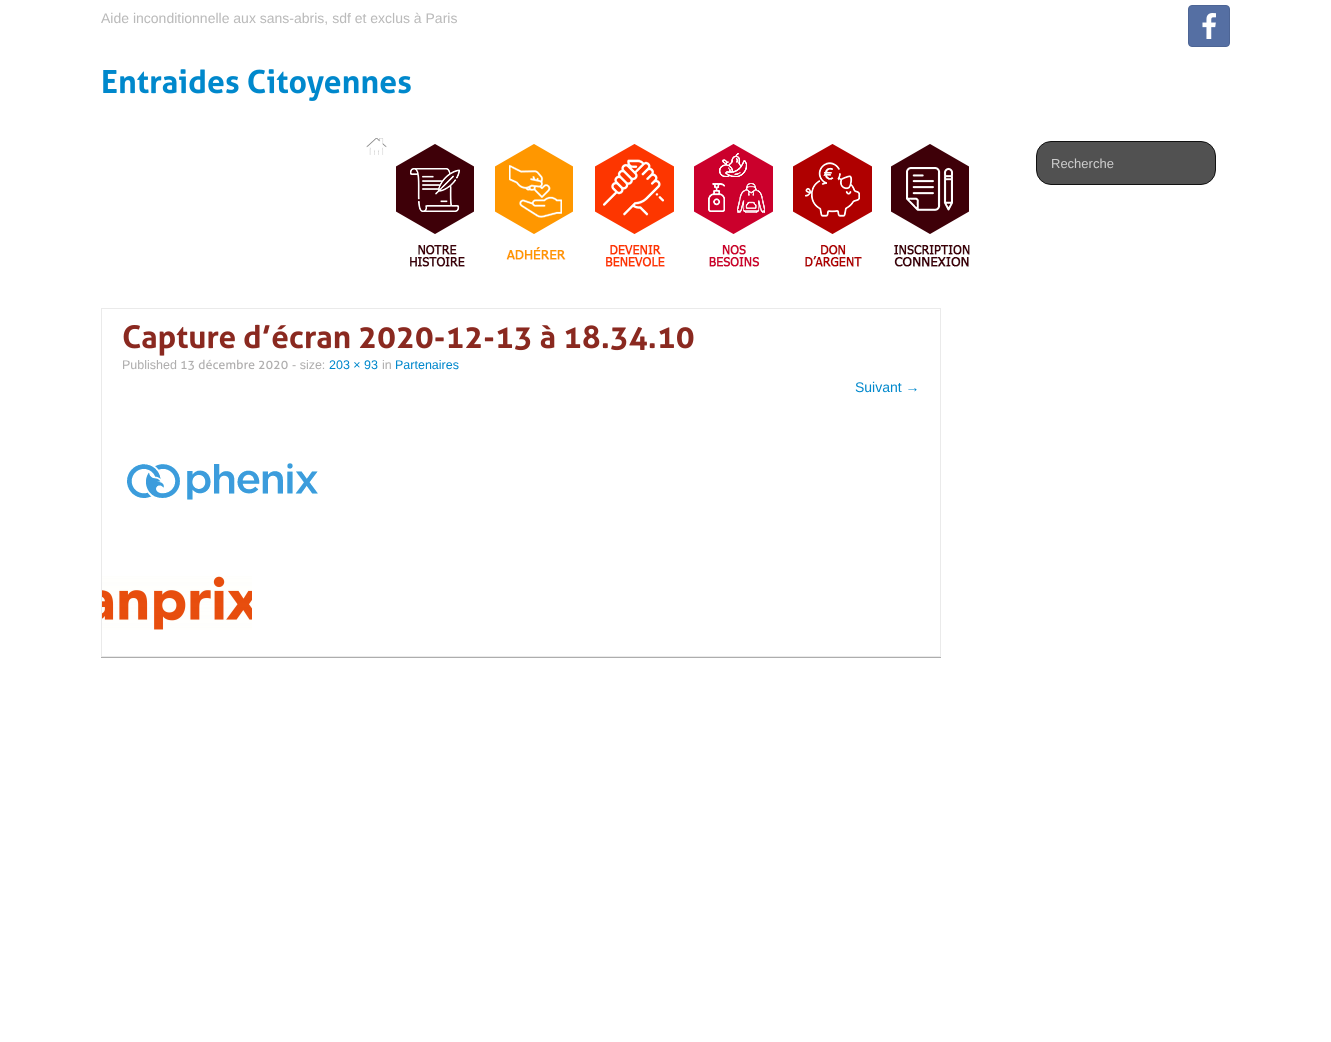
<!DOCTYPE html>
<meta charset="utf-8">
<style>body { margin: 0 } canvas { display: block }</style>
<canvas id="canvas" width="1331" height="1042"></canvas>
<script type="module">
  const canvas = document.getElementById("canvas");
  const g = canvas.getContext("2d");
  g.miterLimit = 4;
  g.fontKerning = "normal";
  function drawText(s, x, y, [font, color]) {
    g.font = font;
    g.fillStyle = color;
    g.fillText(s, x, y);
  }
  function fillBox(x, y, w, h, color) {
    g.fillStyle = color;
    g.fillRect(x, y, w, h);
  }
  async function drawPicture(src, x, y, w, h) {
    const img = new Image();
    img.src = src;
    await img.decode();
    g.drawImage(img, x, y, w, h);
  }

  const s1 = ["14px Liberation Sans", "#BABABA"];
  const s2 = ["13px Liberation Sans", "#CCCCCC"];
  const s3 = ["12.5px Liberation Sans", "#AFAEAE"];
  const s4 = ["12.5px Liberation Sans", "#0088CC"];
  const s5 = ["14px Liberation Sans", "#0088CC"];

  fillBox(0, 0, 1331, 1042, "#FFFFFF");
  drawText("Aide inconditionnelle aux sans-abris, sdf et exclus à Paris", 101, 23, s1);
  g.fillStyle = "#556FA3";
  g.beginPath();
  g.roundRect(1188.5, 5.5, 41, 41, 3.5);
  g.fill();
  g.strokeStyle = "#4D6595";
  g.stroke();
  await drawPicture("pic1.png", 1202, 13, 14, 26);
  await drawPicture("pic2.png", 103, 69, 308, 32);
  await drawPicture("pic3.png", 366, 138, 21, 17);
  await drawPicture("pic4.png", 396, 144, 78, 123);
  await drawPicture("pic5.png", 495, 144, 78, 116);
  await drawPicture("pic6.png", 595, 144, 79, 123);
  await drawPicture("pic7.png", 694, 144, 79, 123);
  await drawPicture("pic8.png", 793, 144, 79, 123);
  await drawPicture("pic9.png", 891, 144, 79, 123);
  g.fillStyle = "#515151";
  g.beginPath();
  g.roundRect(1036.5, 141.5, 179, 43, 14.5);
  g.fill();
  g.strokeStyle = "#111111";
  g.stroke();
  drawText("Recherche", 1051, 168, s2);
  fillBox(101, 657, 840, 1, "#ADADAD");
  g.strokeStyle = "#EAEAEA";
  g.strokeRect(101.5, 308.5, 839, 348);
  await drawPicture("pic10.png", 123, 324, 571, 32);
  drawText("Published", 122, 369, s3);
  await drawPicture("pic11.png", 181, 359, 107, 11);
  drawText("- size:", 292, 369, s3);
  drawText("203 × 93", 329, 369, s4);
  drawText("in", 382, 369, s3);
  drawText("Partenaires", 395, 369, s4);
  drawText("Suivant →", 855, 392, s5);
  await drawPicture("pic12.png", 127, 463, 191, 37);
  await drawPicture("pic13.png", 102, 576, 150, 54);
</script>
